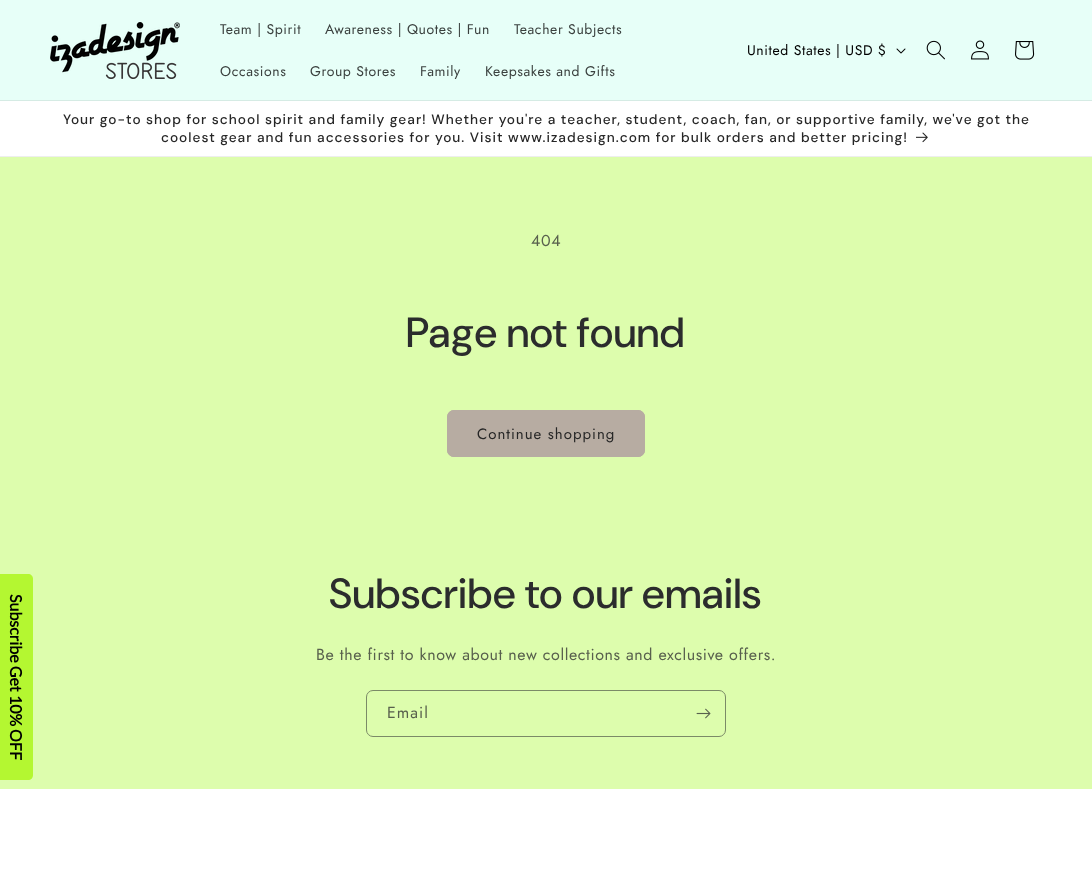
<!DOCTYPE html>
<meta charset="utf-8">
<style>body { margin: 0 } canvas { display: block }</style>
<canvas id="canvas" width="1092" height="874"></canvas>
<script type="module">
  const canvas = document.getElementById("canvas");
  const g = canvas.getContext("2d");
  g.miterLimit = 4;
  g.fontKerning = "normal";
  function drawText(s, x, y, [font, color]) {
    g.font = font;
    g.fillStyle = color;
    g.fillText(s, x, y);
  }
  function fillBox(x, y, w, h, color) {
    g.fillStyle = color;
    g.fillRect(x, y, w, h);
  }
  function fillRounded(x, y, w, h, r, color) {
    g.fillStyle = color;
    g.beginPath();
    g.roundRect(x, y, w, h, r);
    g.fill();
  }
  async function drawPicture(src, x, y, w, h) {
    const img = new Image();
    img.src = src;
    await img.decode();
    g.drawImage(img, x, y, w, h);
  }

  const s1 = ["14px Jost", "#3A403E"];
  const s2 = ["14px Jost", "#000000"];
  const s3 = ["500 13.65px DM Sans", "#262626"];
  const s4 = ["16px Jost", "#58604D"];
  const s5 = ["500 42px 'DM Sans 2'", "#2B2C2D"];
  const s6 = ["15px Jost", "#262626"];

  fillBox(0, 0, 1092, 874, "#DDFDAD");
  fillBox(0, 0, 1092, 100, "#E7FFF8");
  fillBox(0, 100, 1092, 1, "#D5EBE4");
  await drawPicture("pic1.png", 50, 22, 130, 57);
  g.letterSpacing = "0.6px";
  drawText("Team | Spirit", 220, 34, s1);
  drawText("Awareness | Quotes | Fun", 325, 34, s1);
  drawText("Teacher Subjects", 514, 34, s1);
  drawText("Occasions", 220, 76, s1);
  drawText("Group Stores", 310, 76, s1);
  drawText("Family", 420, 76, s1);
  drawText("Keepsakes and Gifts", 485, 76, s1);
  drawText("United States | USD $", 747, 55, s2);
  await drawPicture("pic2.png", 896, 48, 10, 6);
  await drawPicture("pic3.png", 926, 40, 19, 20);
  await drawPicture("pic4.png", 971, 40, 18, 20);
  await drawPicture("pic5.png", 1015, 41, 20, 19);
  fillBox(0, 101, 1092, 55, "#FFFFFF");
  fillBox(0, 156, 1092, 1, "#EEEEEE");
  g.letterSpacing = "1px";
  drawText("Your go-to shop for school spirit and family gear! Whether you're a teacher, student, coach, fan, or supportive family, we've got the", 63, 124, s3);
  drawText("coolest gear and fun accessories for you. Visit www.izadesign.com for bulk orders and better pricing!", 161, 142, s3);
  await drawPicture("pic6.png", 916, 132, 12, 11);
  g.letterSpacing = "0.6px";
  drawText("404", 531, 246, s4);
  drawText("Page not found", 406, 347, s5);
  fillRounded(447, 410, 198, 47, 7, "#B7ACA2");
  g.beginPath();
  g.roundRect(447.5, 410.5, 197, 46, 6.5);
  g.strokeStyle = "#B7ACA2";
  g.stroke();
  g.letterSpacing = "1px";
  drawText("Continue shopping", 477, 439, s6);
  g.fillStyle = "#B4F731";
  g.beginPath();
  g.moveTo(33, 579);
  g.lineTo(33, 775);
  g.bezierCurveTo(33, 778, 31, 780, 28, 780);
  g.lineTo(0, 780);
  g.lineTo(0, 574);
  g.lineTo(28, 574);
  g.bezierCurveTo(31, 574, 33, 576, 33, 579);
  g.closePath();
  g.fill();
  g.letterSpacing = "0px";
  g.font = "bold 16px Lato";
  g.fillStyle = "#000000";
  g.save();
  g.translate(10, 594);
  g.rotate(90 * Math.PI / 180);
  g.fillText("Subscribe Get 10% OFF", 0, 0);
  g.restore();
  g.letterSpacing = "0.6px";
  drawText("Subscribe to our emails", 329, 608, s5);
  drawText("Be the first to know about new collections and exclusive offers.", 316, 660, s4);
  g.beginPath();
  g.roundRect(366.5, 690.5, 359, 46, 6.5);
  g.strokeStyle = "#7B8A67";
  g.stroke();
  g.letterSpacing = "1px";
  drawText("Email", 387, 718, s4);
  await drawPicture("pic7.png", 696, 708, 15, 11);
  fillBox(0, 789, 1092, 85, "#FFFFFF");
</script>
